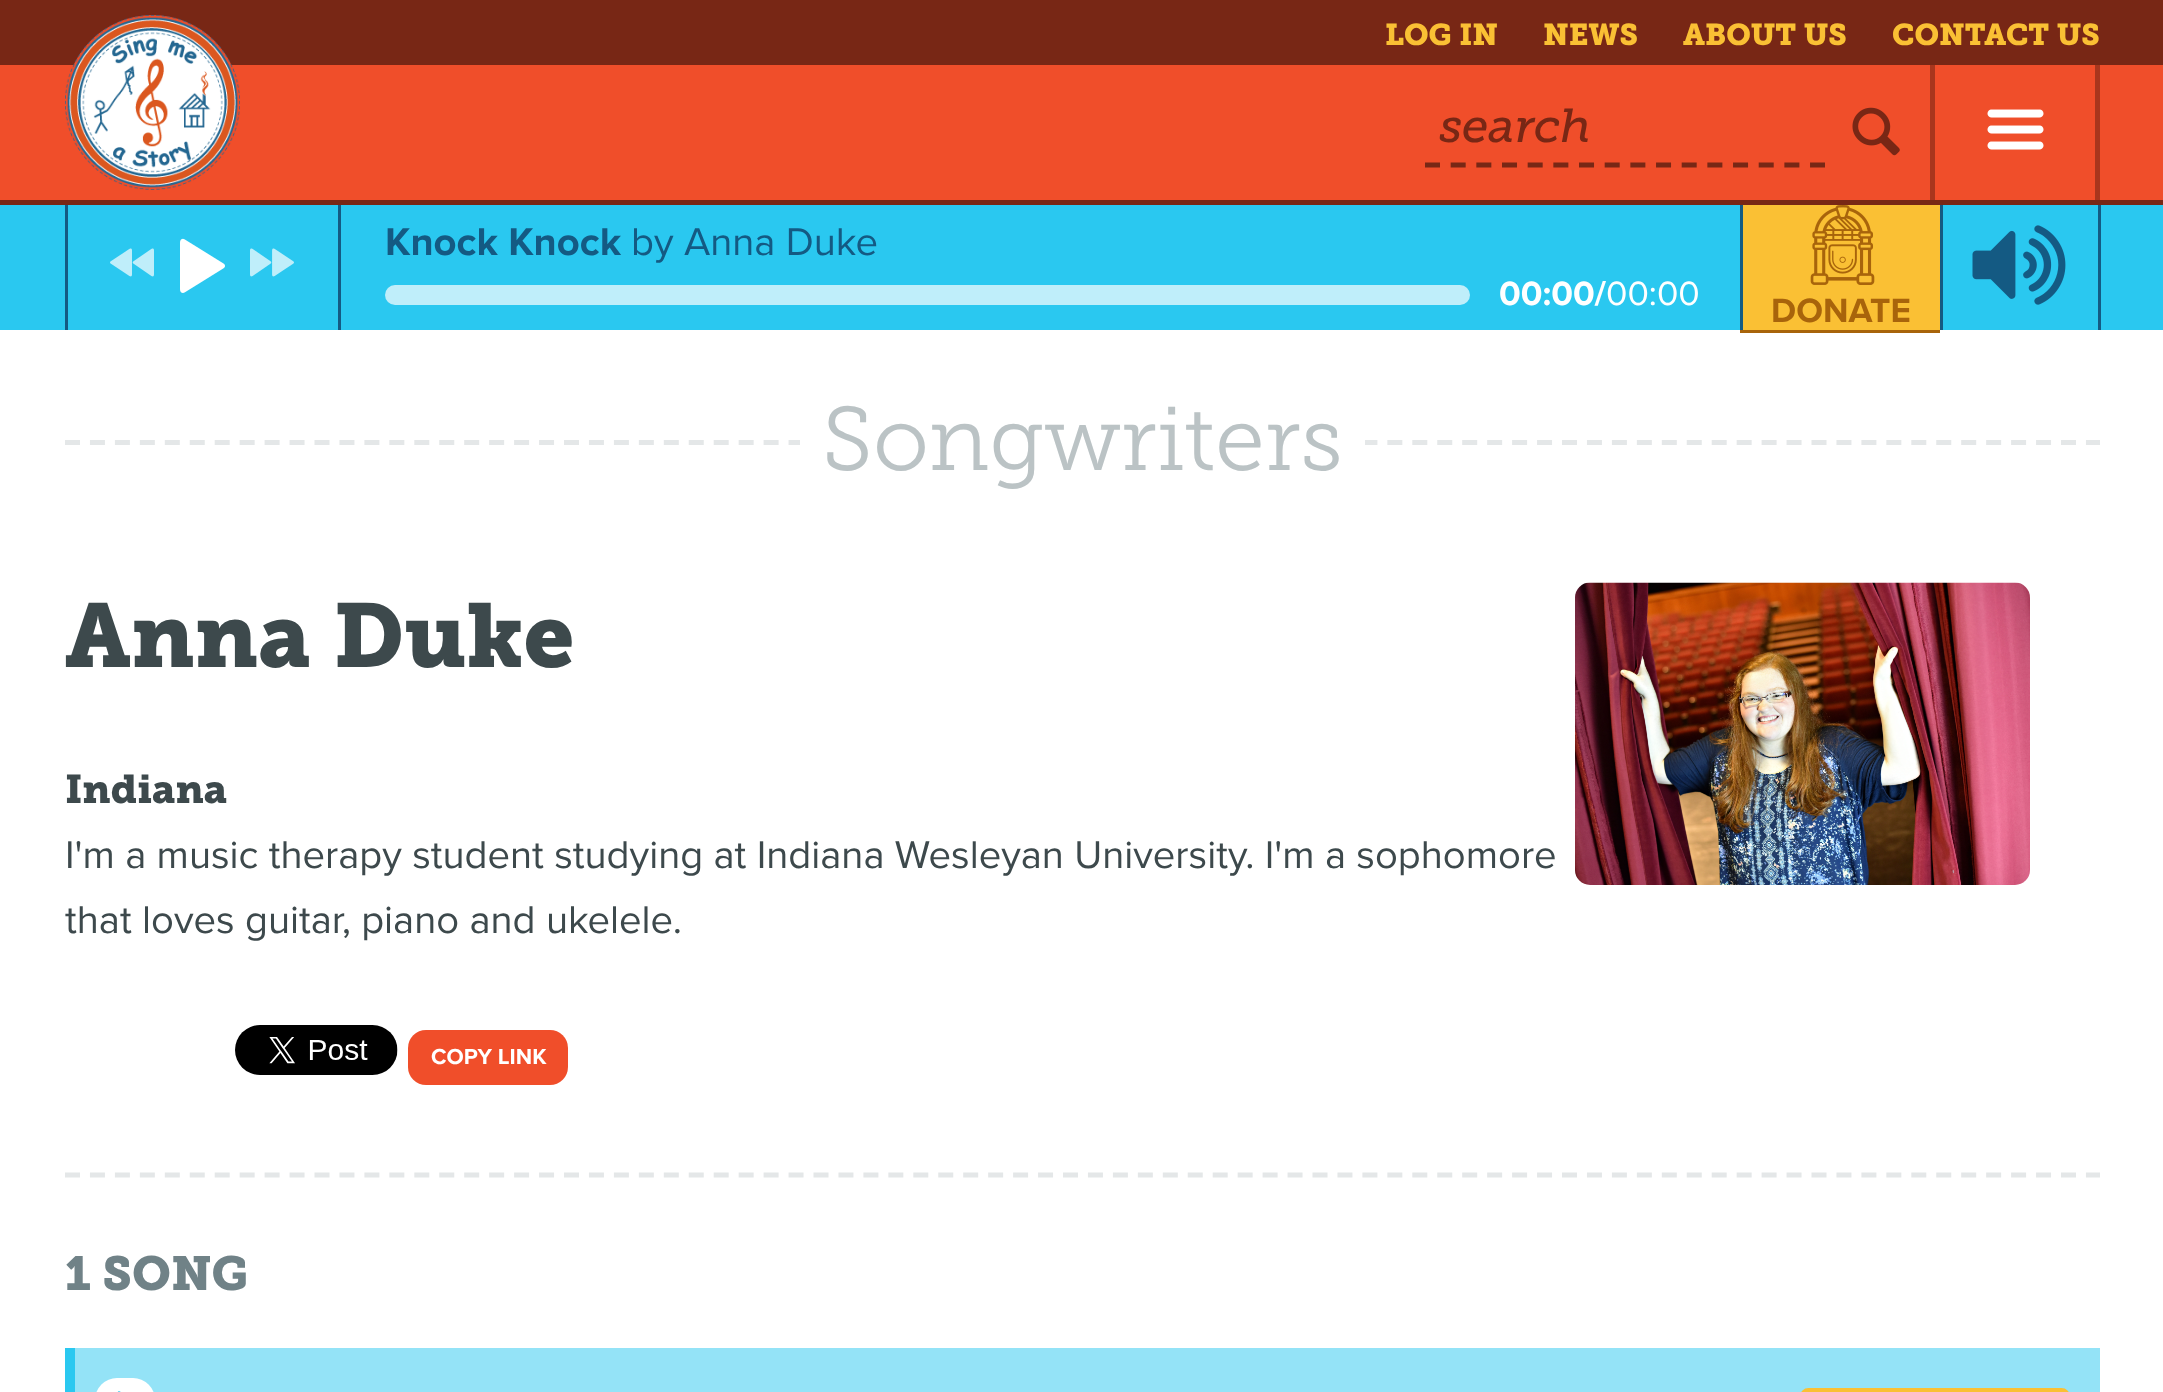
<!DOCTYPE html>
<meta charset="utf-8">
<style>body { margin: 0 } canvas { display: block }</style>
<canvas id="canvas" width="2163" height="1392"></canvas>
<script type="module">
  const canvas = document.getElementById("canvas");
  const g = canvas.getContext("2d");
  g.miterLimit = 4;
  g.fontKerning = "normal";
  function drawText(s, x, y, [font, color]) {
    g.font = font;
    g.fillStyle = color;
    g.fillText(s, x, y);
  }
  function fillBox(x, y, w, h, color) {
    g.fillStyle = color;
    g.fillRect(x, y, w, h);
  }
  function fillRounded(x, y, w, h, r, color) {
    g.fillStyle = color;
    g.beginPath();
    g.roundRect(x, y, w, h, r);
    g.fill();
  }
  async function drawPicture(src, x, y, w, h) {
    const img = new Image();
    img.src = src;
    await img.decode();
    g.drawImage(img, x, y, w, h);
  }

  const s1 = ["bold 30px 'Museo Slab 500'", "#FAC034"];
  const s2 = ["italic 500 47.5px 'Museo Slab 500'", "#782715"];
  const s3 = ["bold 40px Proxima Nova", "#145A83"];
  const s4 = ["40px Proxima Nova", "#145A83"];
  const s5 = ["bold 35px Proxima Nova", "#FFFFFF"];
  const s6 = ["35px Proxima Nova", "#FFFFFF"];
  const s7 = ["bold 35px Proxima Nova", "#A8640B"];
  const s8 = ["300 90px 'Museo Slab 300'", "#BBC3C5"];
  const s9 = ["bold 90px 'Museo Slab 500'", "#3D494C"];
  const s10 = ["bold 40px 'Museo Slab 500'", "#3D494C"];
  const s11 = ["40px Proxima Nova", "#3D494C"];
  const s12 = ["bold 22.5px Proxima Nova", "#FFFFFF"];
  const s13 = ["bold 47.5px 'Museo Slab 500'", "#708287"];

  fillBox(0, 0, 2163, 1392, "#FFFFFF");
  fillBox(0, 205, 2163, 125, "#2AC8F0");
  fillBox(338, 200, 3, 130, "#145A83");
  fillBox(65, 200, 3, 130, "#145A83");
  fillBox(2098, 200, 3, 130, "#145A83");
  fillBox(1940, 200, 3, 130, "#145A83");
  fillBox(1740, 200, 3, 130, "#145A83");
  fillBox(0, 200, 2163, 5, "#782715");
  fillBox(0, 65, 2163, 135, "#F04E2A");
  fillBox(0, 0, 2163, 65, "#782715");
  drawText("LOG IN", 1385, 45, s1);
  drawText("NEWS", 1543, 45, s1);
  drawText("ABOUT US", 1683, 45, s1);
  drawText("CONTACT US", 1892, 45, s1);
  g.fillStyle = "#F04E2A";
  g.beginPath();
  g.arc(152.5, 102.5, 87.5, 0, Math.PI * 2);
  g.fill();
  await drawPicture("pic1.png", 65, 15, 175, 175);
  drawText("search", 1439, 142, s2);
  g.beginPath();
  g.moveTo(1425, 165);
  g.lineTo(1825, 165);
  g.strokeStyle = "#782715";
  g.lineWidth = 5;
  g.setLineDash([15, 10.67]);
  g.stroke();
  await drawPicture("pic2.png", 1852, 107, 48, 49);
  fillBox(2095, 65, 5, 135, "#A8361D");
  fillBox(1930, 65, 5, 135, "#A8361D");
  await drawPicture("pic3.png", 1987, 109, 57, 41);
  await drawPicture("pic4.png", 110, 248, 44, 29);
  await drawPicture("pic5.png", 180, 238, 45, 55);
  await drawPicture("pic6.png", 250, 248, 44, 29);
  drawText("Knock Knock", 385, 255, s3);
  drawText("by Anna Duke", 631, 255, s4);
  fillRounded(385, 285, 1085, 20, 10, "#BFEEFA");
  drawText("00:00/", 1499, 305, s5);
  drawText("00:00", 1606, 305, s6);
  await drawPicture("pic7.png", 1972, 225, 94, 80);
  fillBox(1740, 330, 200, 3, "#A8640B");
  fillBox(1743, 205, 197, 125, "#FAC034");
  await drawPicture("pic8.png", 1810, 205, 65, 80);
  drawText("DONATE", 1771, 322, s7);
  g.beginPath();
  g.moveTo(65, 442.5);
  g.lineTo(2100, 442.5);
  g.strokeStyle = "#E4E7E8";
  g.setLineDash([15, 9.95]);
  g.stroke();
  fillBox(800, 440, 565, 5, "#FFFFFF");
  drawText("Songwriters", 822, 470, s8);
  g.beginPath();
  g.moveTo(65, 1175);
  g.lineTo(2100, 1175);
  g.stroke();
  drawText("Anna Duke", 65, 667, s9);
  drawText("Indiana", 65, 803, s10);
  drawText("I'm a music therapy student studying at Indiana Wesleyan University. I'm a sophomore", 65, 868, s11);
  drawText("that loves guitar, piano and ukelele.", 65, 933, s11);
  await drawPicture("pic9.png", 235, 1025, 163, 50);
  fillRounded(408, 1030, 160, 55, 18, "#F04E2A");
  drawText("COPY LINK", 431, 1064, s12);
  await drawPicture("pic10.png", 1575, 582, 455, 303);
  drawText("1 SONG", 65, 1290, s13);
  fillBox(75, 1348, 2025, 44, "#94E3F7");
  fillBox(65, 1348, 10, 44, "#2AC8F0");
  fillRounded(95, 1378, 60, 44, 30, "#FFFFFF");
  await drawPicture("pic11.png", 117, 1391, 4, 1);
  fillRounded(1800, 1388, 270, 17, 13, "#FAC034");
</script>
